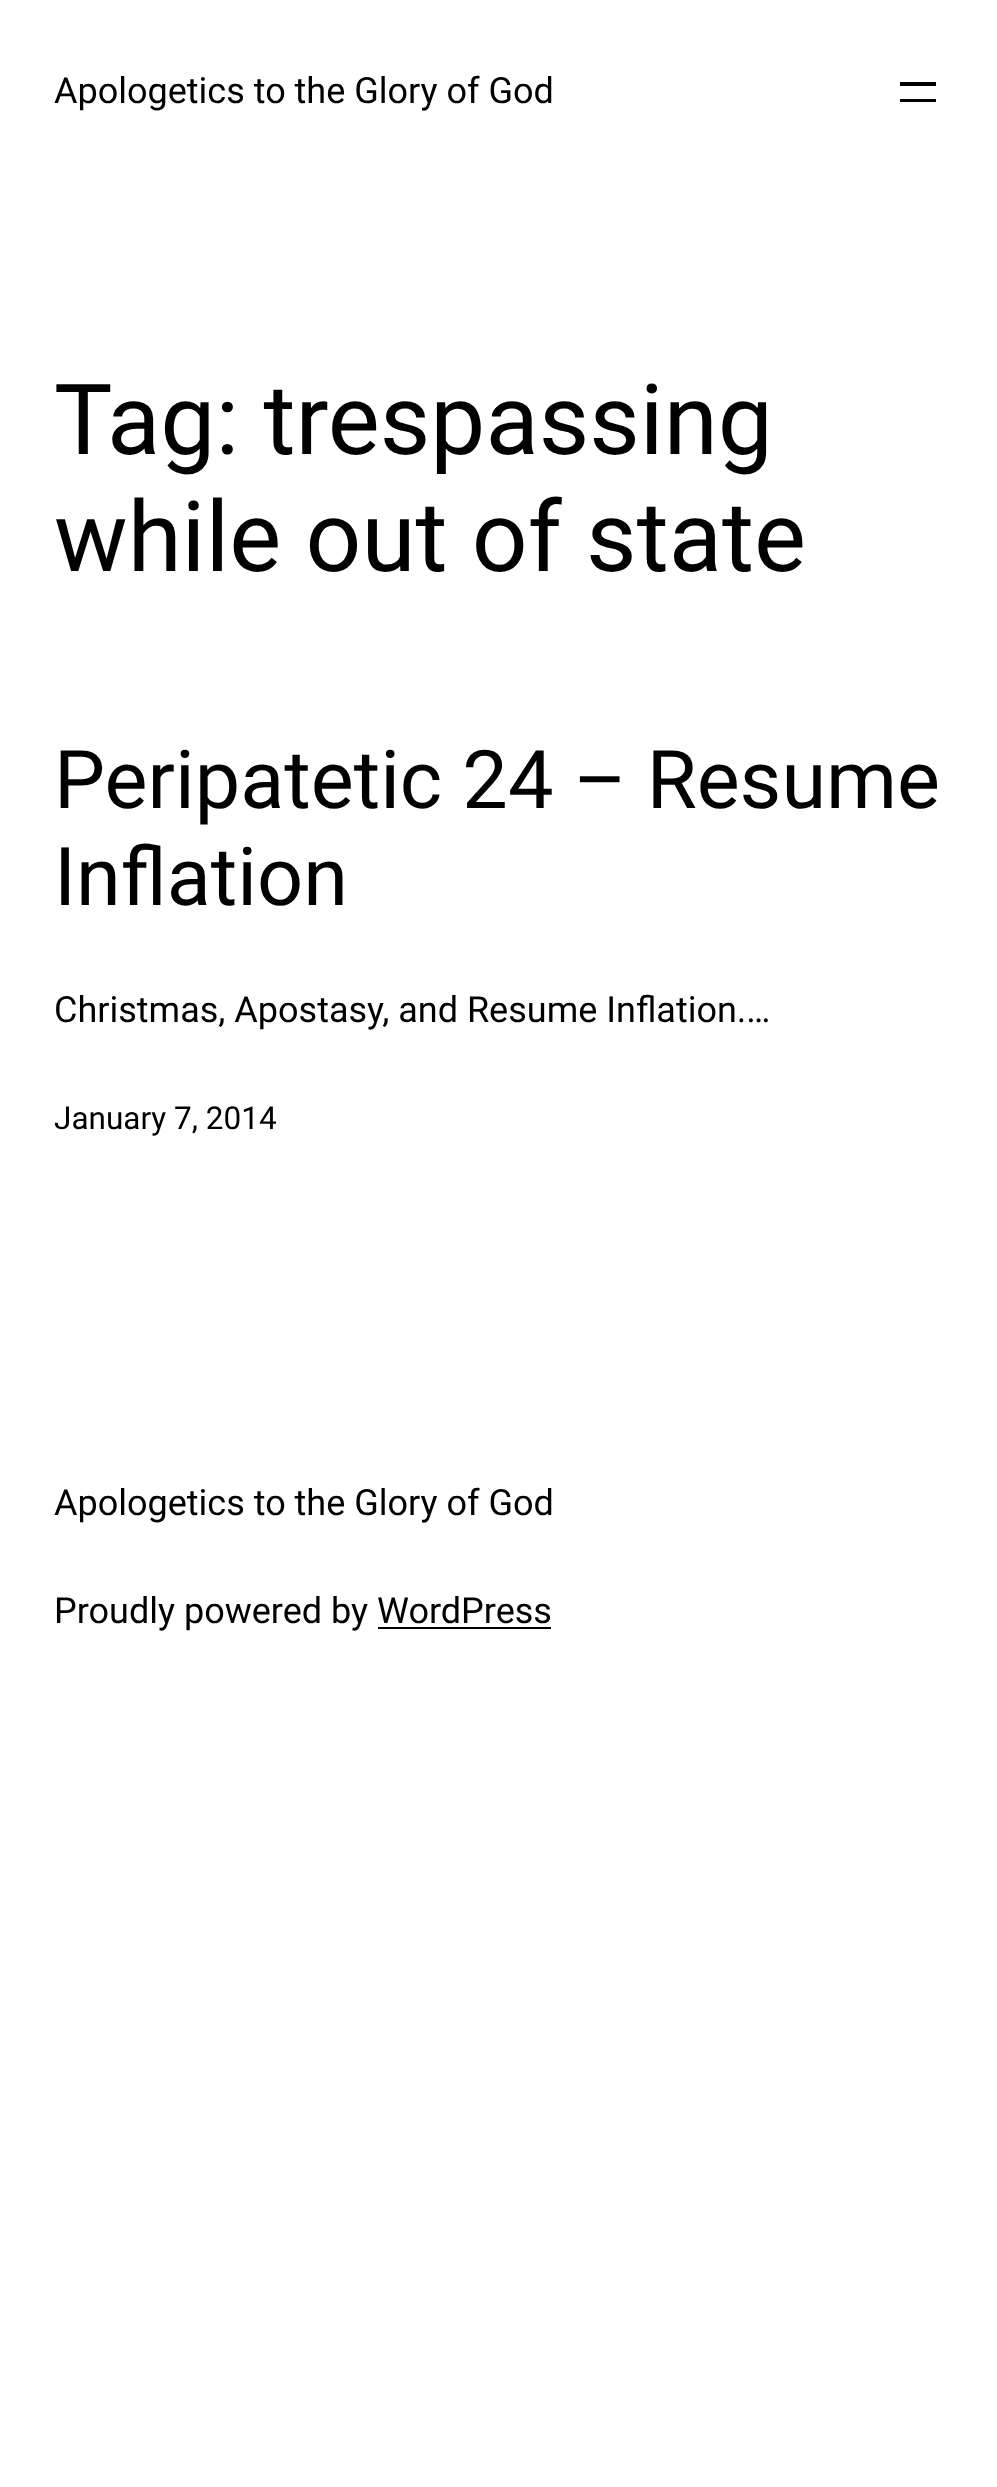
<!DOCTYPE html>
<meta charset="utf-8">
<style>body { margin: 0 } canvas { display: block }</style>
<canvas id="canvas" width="997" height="2487"></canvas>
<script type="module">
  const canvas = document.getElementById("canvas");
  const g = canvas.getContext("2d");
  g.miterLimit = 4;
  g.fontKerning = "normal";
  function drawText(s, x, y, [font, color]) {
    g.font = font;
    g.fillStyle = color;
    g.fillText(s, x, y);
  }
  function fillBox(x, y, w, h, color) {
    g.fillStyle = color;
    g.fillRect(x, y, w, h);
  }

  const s1 = ["36px Roboto", "#000000"];
  const s2 = ["98px Roboto", "#000000"];
  const s3 = ["81px Roboto", "#000000"];
  const s4 = ["31.5px Roboto", "#000000"];

  fillBox(0, 0, 997, 2487, "#FFFFFF");
  drawText("Apologetics to the Glory of God", 54, 103, s1);
  fillBox(900, 82, 36, 4, "#000000");
  fillBox(900, 99, 36, 3, "#000000");
  drawText("Tag: trespassing", 54, 454, s2);
  drawText("while out of state", 54, 571, s2);
  drawText("Peripatetic 24 – Resume", 54, 808, s3);
  drawText("Inflation", 54, 905, s3);
  drawText("Christmas, Apostasy, and Resume Inflation.…", 54, 1022, s1);
  drawText("January 7, 2014", 54, 1129, s4);
  drawText("Apologetics to the Glory of God", 54, 1515, s1);
  drawText("Proudly powered by WordPress", 54, 1623, s1);
  fillBox(378, 1627, 173, 2, "#000000");
</script>
